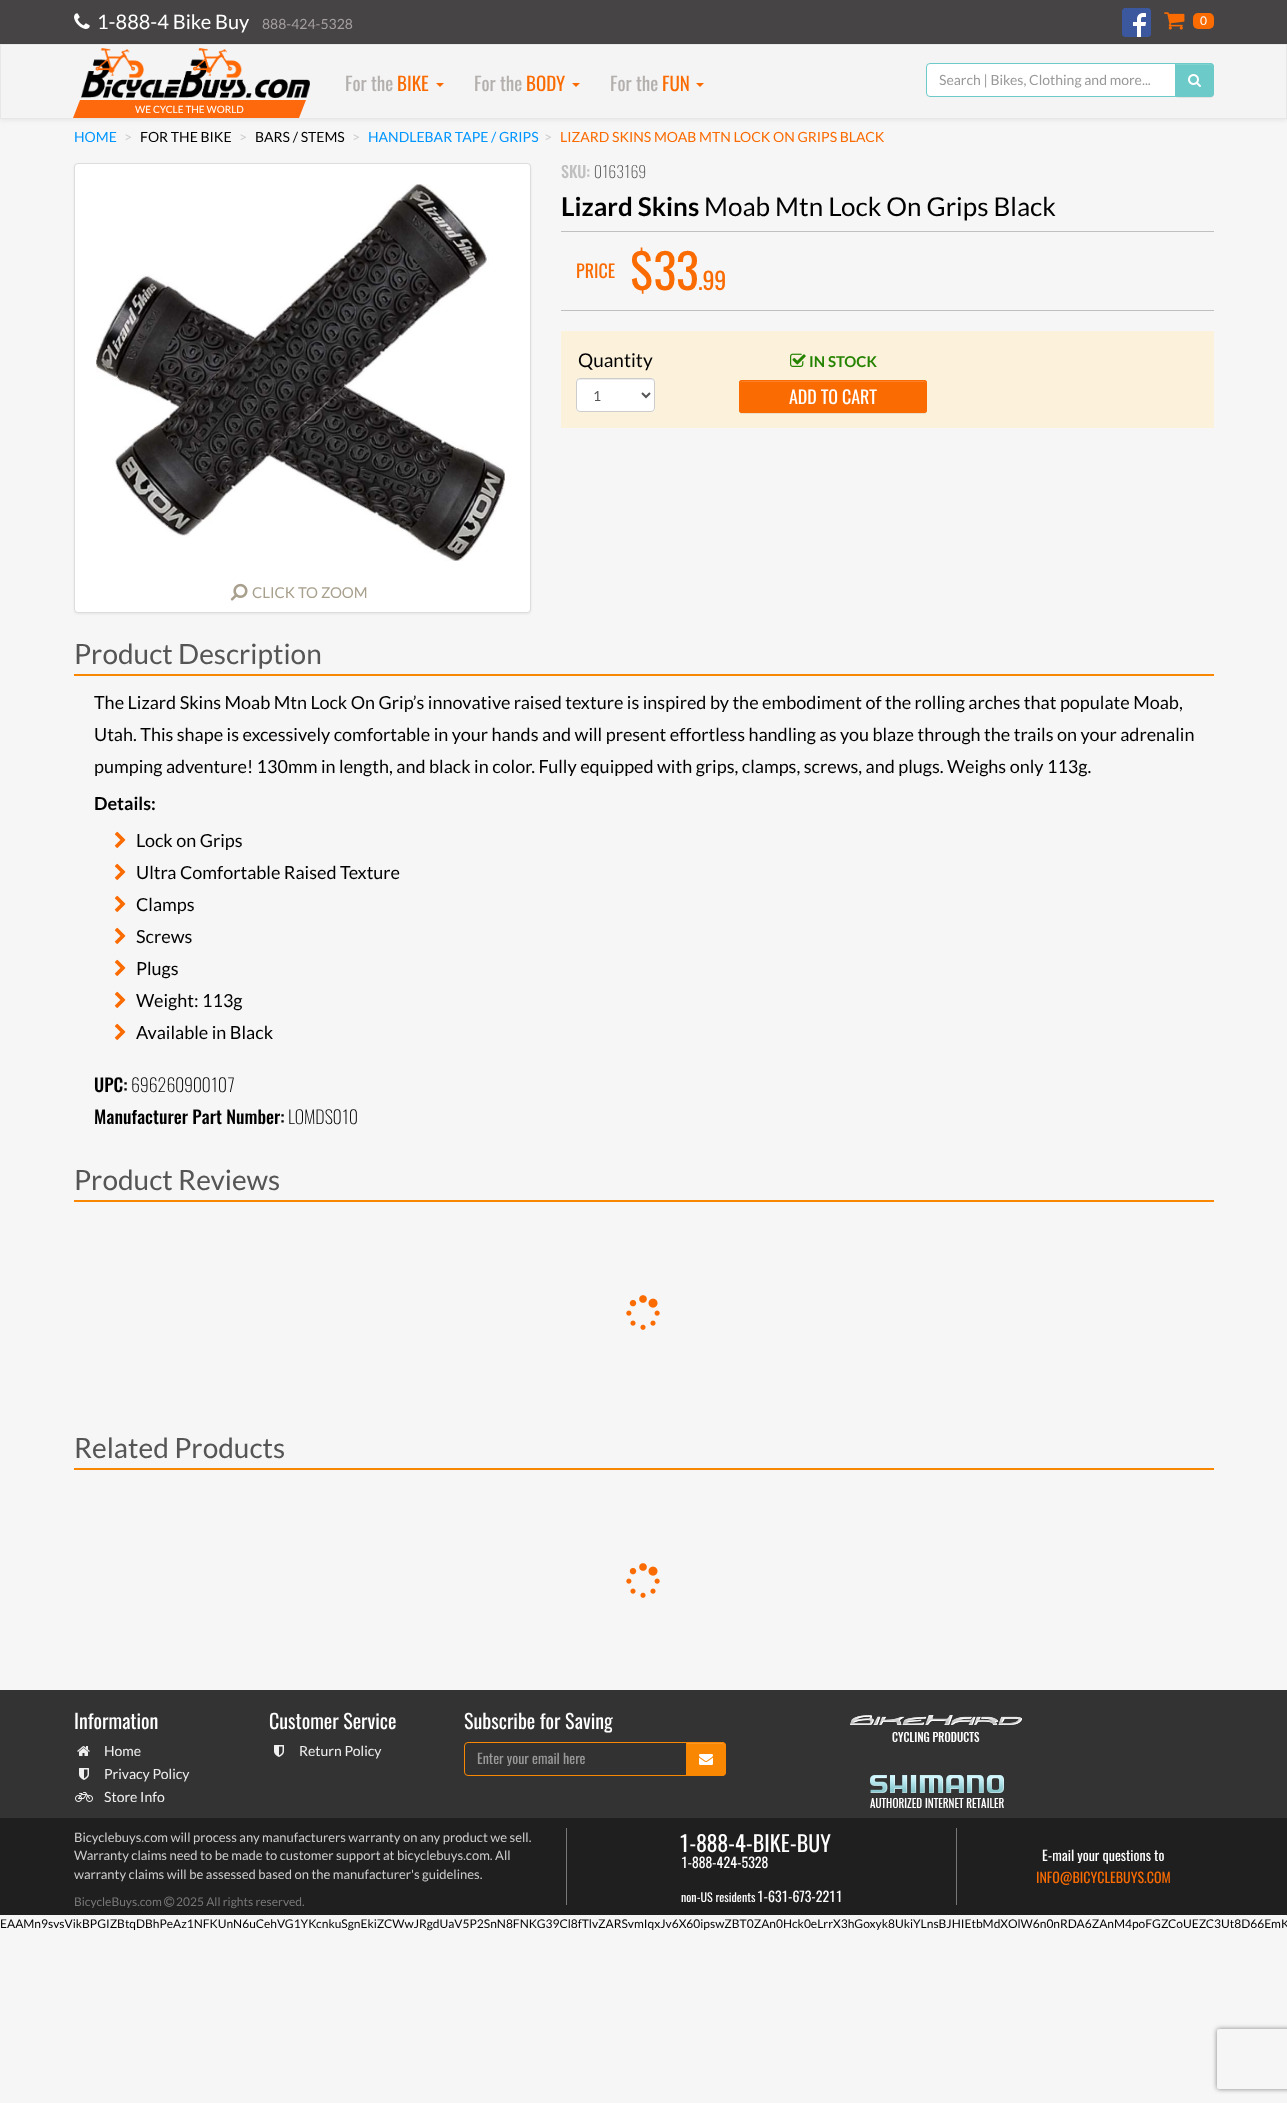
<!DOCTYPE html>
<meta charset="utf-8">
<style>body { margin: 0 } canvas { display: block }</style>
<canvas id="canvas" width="1287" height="2103"></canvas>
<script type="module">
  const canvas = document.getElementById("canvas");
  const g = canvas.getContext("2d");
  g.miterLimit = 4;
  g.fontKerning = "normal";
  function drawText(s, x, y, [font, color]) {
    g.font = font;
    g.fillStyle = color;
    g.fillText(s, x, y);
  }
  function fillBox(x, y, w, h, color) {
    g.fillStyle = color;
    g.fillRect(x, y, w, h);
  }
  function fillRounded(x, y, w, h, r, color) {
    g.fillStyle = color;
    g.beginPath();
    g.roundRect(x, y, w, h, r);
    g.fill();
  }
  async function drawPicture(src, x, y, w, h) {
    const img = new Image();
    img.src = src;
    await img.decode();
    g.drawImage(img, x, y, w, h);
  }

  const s1 = ["20px Lato", "#FFFFFF"];
  const s2 = ["14px Lato", "#A59FA2"];
  const s3 = ["12px Lato", "#FFFFFF"];
  const s4 = ["19px Oswald", "#B3AFAD"];
  const s5 = ["19px Oswald", "#FA6B02"];
  const s6 = ["14px Lato", "#999999"];
  const s7 = ["10px Lato", "#FFFFFF"];
  const s8 = ["14px Lato", "#0096FF"];
  const s9 = ["14px Lato", "#CCCCCC"];
  const s10 = ["14px Lato", "#000000"];
  const s11 = ["14px Lato", "#FA6B02"];
  const s12 = ["500 16px Oswald", "#C0C0C0"];
  const s13 = ["200 16px Oswald", "#555555"];
  const s14 = ["bold 26px Lato", "#000000"];
  const s15 = ["26px Lato", "#000000"];
  const s16 = ["18px Oswald", "#FA6B02"];
  const s17 = ["48px Oswald", "#FA6B02"];
  const s18 = ["24px Oswald", "#FA6B02"];
  const s19 = ["19px Lato", "#000000"];
  const s20 = ["14px Lato", "#555555"];
  const s21 = ["bold 15px Lato", "#258300"];
  const s22 = ["18px Oswald", "#FFFFFF"];
  const s23 = ["15px Lato", "#A89F8C"];
  const s24 = ["28px Lato", "#555555"];
  const s25 = ["18px Lato", "#000000"];
  const s26 = ["bold 18px Lato", "#000000"];
  const s27 = ["500 18px Oswald", "#000000"];
  const s28 = ["200 18px Oswald", "#000000"];
  const s29 = ["20px Oswald", "#FFFFFF"];
  const s30 = ["14px Lato", "#F0F0F0"];
  const s31 = ["14px Oswald", "#999999"];
  const s32 = ["13px Lato", "#CCCCCC"];
  const s33 = ["12px Lato", "#787878"];
  const s34 = ["22px Oswald", "#FFFFFF"];
  const s35 = ["14px Oswald", "#FFFFFF"];
  const s36 = ["12px Oswald", "#FFFFFF"];
  const s37 = ["14px Oswald", "#FA6B02"];
  const s38 = ["12px Lato", "#000000"];

  fillBox(0, 0, 1287, 2103, "#F6F6F6");
  fillBox(0, 0, 1287, 44, "#464445");
  await drawPicture("pic1.png", 74, 13, 16, 16);
  drawText("1-888-4 Bike Buy", 97, 29, s1);
  drawText("888-424-5328", 262, 29, s2);
  await drawPicture("pic2.png", 1122, 8, 29, 29);
  await drawPicture("pic3.png", 1164, 12, 21, 18);
  fillRounded(1193, 13, 21, 16, 5, "#FA6B02");
  drawText("0", 1200, 25, s3);
  g.fillStyle = "rgba(0, 0, 0, 0.07)";
  g.filter = "blur(2.5px)";
  g.beginPath();
  g.rect(0, 45, 1287, 75);
  g.fill();
  g.filter = "none";
  fillBox(1, 46, 1285, 72, "#F4F4F4");
  fillBox(1, 45, 1285, 1, "#F6F6F6");
  g.strokeStyle = "#E7E7E7";
  g.strokeRect(0.5, 44.5, 1286, 74);
  drawText("For the", 345, 91, s4);
  drawText("BIKE", 397, 91, s5);
  g.beginPath();
  g.moveTo(436, 83);
  g.lineTo(444, 83);
  g.lineTo(440, 87);
  g.closePath();
  g.fill();
  drawText("For the", 474, 91, s4);
  drawText("BODY", 526, 91, s5);
  g.beginPath();
  g.moveTo(572, 83);
  g.lineTo(580, 83);
  g.lineTo(576, 87);
  g.closePath();
  g.fill();
  drawText("For the", 610, 91, s4);
  drawText("FUN", 662, 91, s5);
  g.beginPath();
  g.moveTo(696, 83);
  g.lineTo(704, 83);
  g.lineTo(700, 87);
  g.closePath();
  g.fill();
  g.fillStyle = "rgba(0, 0, 0, 0.07)";
  g.filter = "blur(0.5px)";
  g.beginPath();
  g.roundRect(1175, 64, 39, 34, 4);
  g.fill();
  g.filter = "none";
  g.fillStyle = "#6CCAC9";
  g.beginPath();
  g.roundRect(1175, 63, 39, 34, [0, 4, 4, 0]);
  g.fill();
  g.fillStyle = "#82D2D1";
  g.beginPath();
  g.moveTo(1176, 65);
  g.lineTo(1210, 65);
  g.bezierCurveTo(1212, 65, 1213, 66, 1213, 68);
  g.lineTo(1213, 67);
  g.bezierCurveTo(1213, 65.5, 1211.5, 64, 1210, 64);
  g.lineTo(1176, 64);
  g.closePath();
  g.fill();
  g.beginPath();
  g.roundRect(1175.5, 63.5, 38, 33, [0, 3.5, 3.5, 0]);
  g.strokeStyle = "#6CCAC9";
  g.stroke();
  g.fillStyle = "#FFFFFF";
  g.beginPath();
  g.roundRect(926.5, 63.5, 249, 33, [3.5, 0, 0, 3.5]);
  g.fill();
  g.stroke();
  drawText("Search | Bikes, Clothing and more...", 939, 85, s6);
  await drawPicture("pic4.png", 1188, 74, 13, 13);
  await drawPicture("pic5.png", 81, 48, 229, 50);
  g.fillStyle = "#FF690E";
  g.beginPath();
  g.moveTo(80, 100);
  g.lineTo(306, 100);
  g.lineTo(299, 118);
  g.lineTo(73, 118);
  g.closePath();
  g.fill();
  drawText("WE CYCLE THE WORLD", 135, 113, s7);
  drawText("HOME", 74, 142, s8);
  drawText(">", 124, 142, s9);
  drawText("FOR THE BIKE", 140, 142, s10);
  drawText(">", 239, 142, s9);
  drawText("BARS / STEMS", 255, 142, s10);
  drawText(">", 352, 142, s9);
  drawText("HANDLEBAR TAPE / GRIPS", 368, 142, s8);
  drawText(">", 544, 142, s9);
  drawText("LIZARD SKINS MOAB MTN LOCK ON GRIPS BLACK", 560, 142, s11);
  drawText("SKU:", 561, 178, s12);
  drawText("0163169", 594, 178, s13);
  drawText("Lizard Skins", 561, 216, s14);
  drawText("Moab Mtn Lock On Grips Black", 704, 216, s15);
  fillBox(561, 231, 653, 1, "#C0C0C0");
  fillBox(561, 310, 653, 1, "#C0C0C0");
  drawText("PRICE", 576, 278, s16);
  drawText("$33", 630, 290, s17);
  drawText(".99", 698, 290, s18);
  fillBox(561, 331, 653, 97, "#FCF2DC");
  drawText("Quantity", 578, 367, s19);
  fillRounded(576, 378, 79, 34, 4, "#FFFFFF");
  g.fillStyle = "#ECECEC";
  g.beginPath();
  g.moveTo(580, 380);
  g.lineTo(651, 380);
  g.bezierCurveTo(653, 380, 654, 381, 654, 383);
  g.bezierCurveTo(654, 376, 643, 379, 639, 379);
  g.lineTo(592, 379);
  g.bezierCurveTo(588, 379, 577, 376, 577, 383);
  g.bezierCurveTo(577, 381, 578, 380, 580, 380);
  g.closePath();
  g.fill();
  g.beginPath();
  g.roundRect(576.5, 378.5, 78, 33, 3.5);
  g.strokeStyle = "#CCCCCC";
  g.stroke();
  g.beginPath();
  g.moveTo(642, 393);
  g.lineTo(646, 397);
  g.lineTo(650, 393);
  g.strokeStyle = "#555555";
  g.lineWidth = 2;
  g.stroke();
  drawText("1", 593, 401, s20);
  await drawPicture("pic6.png", 790, 353, 16, 14);
  drawText("IN STOCK", 809, 367, s21);
  g.fillStyle = "rgba(0, 0, 0, 0.07)";
  g.filter = "blur(0.5px)";
  g.beginPath();
  g.roundRect(739, 381, 188, 33, 3);
  g.fill();
  g.filter = "none";
  fillRounded(739, 380, 188, 33, 3, "#FA6B02");
  g.fillStyle = "#FB8128";
  g.beginPath();
  g.moveTo(742, 382);
  g.lineTo(924, 382);
  g.bezierCurveTo(925, 382, 926, 383, 926, 384);
  g.lineTo(926, 383);
  g.bezierCurveTo(926, 382, 925, 381, 924, 381);
  g.lineTo(742, 381);
  g.bezierCurveTo(741, 381, 740, 382, 740, 383);
  g.lineTo(740, 384);
  g.bezierCurveTo(740, 383, 741, 382, 742, 382);
  g.closePath();
  g.fill();
  g.beginPath();
  g.roundRect(739.5, 380.5, 187, 32, 2.5);
  g.strokeStyle = "#FA6B02";
  g.lineWidth = 1;
  g.stroke();
  drawText("ADD TO CART", 789, 404, s22);
  g.fillStyle = "rgba(0, 0, 0, 0.07)";
  g.filter = "blur(1px)";
  g.beginPath();
  g.roundRect(74, 164, 457, 450, 4);
  g.fill();
  g.filter = "none";
  g.fillStyle = "#FFFFFF";
  g.beginPath();
  g.roundRect(74.5, 163.5, 456, 449, 3.5);
  g.fill();
  g.strokeStyle = "#DDDDDD";
  g.stroke();
  await drawPicture("pic7.png", 96, 184, 409, 377);
  await drawPicture("pic8.png", 230, 583, 18, 18);
  drawText("CLICK TO ZOOM", 252, 598, s23);
  fillBox(74, 674, 1140, 2, "#FA8702");
  drawText("Product Description", 74, 664, s24);
  drawText("The Lizard Skins Moab Mtn Lock On Grip’s innovative raised texture is inspired by the embodiment of the rolling arches that populate Moab,", 94, 709, s25);
  drawText("Utah. This shape is excessively comfortable in your hands and will present effortless handling as you blaze through the trails on your adrenalin", 94, 741, s25);
  drawText("pumping adventure! 130mm in length, and black in color. Fully equipped with grips, clamps, screws, and plugs. Weighs only 113g.", 94, 773, s25);
  drawText("Details:", 94, 810, s26);
  await drawPicture("pic9.png", 114, 831, 12, 17);
  drawText("Lock on Grips", 136, 847, s25);
  await drawPicture("pic9.png", 114, 863, 12, 17);
  drawText("Ultra Comfortable Raised Texture", 136, 879, s25);
  await drawPicture("pic9.png", 114, 895, 12, 17);
  drawText("Clamps", 136, 911, s25);
  await drawPicture("pic9.png", 114, 927, 12, 17);
  drawText("Screws", 136, 943, s25);
  await drawPicture("pic9.png", 114, 959, 12, 17);
  drawText("Plugs", 136, 975, s25);
  await drawPicture("pic9.png", 114, 991, 12, 17);
  drawText("Weight: 113g", 136, 1007, s25);
  await drawPicture("pic9.png", 114, 1023, 12, 17);
  drawText("Available in Black", 136, 1039, s25);
  drawText("UPC:", 94, 1092, s27);
  drawText("696260900107", 131, 1092, s28);
  drawText("Manufacturer Part Number:", 94, 1124, s27);
  drawText("LOMDS010", 288, 1124, s28);
  fillBox(74, 1200, 1140, 2, "#FA8702");
  drawText("Product Reviews", 74, 1190, s24);
  await drawPicture("pic10.png", 626, 1295, 34, 35);
  fillBox(74, 1468, 1140, 2, "#FA8702");
  drawText("Related Products", 74, 1458, s24);
  await drawPicture("pic10.png", 626, 1563, 34, 35);
  fillBox(0, 1690, 1287, 128, "#333333");
  drawText("Information", 74, 1729, s29);
  await drawPicture("pic11.png", 77, 1746, 13, 10);
  drawText("Home", 104, 1756, s30);
  await drawPicture("pic12.png", 79, 1768, 10, 12);
  drawText("Privacy Policy", 104, 1779, s30);
  await drawPicture("pic13.png", 75, 1792, 18, 10);
  drawText("Store Info", 104, 1802, s30);
  drawText("Customer Service", 269, 1729, s29);
  await drawPicture("pic12.png", 274, 1745, 10, 12);
  drawText("Return Policy", 299, 1756, s30);
  drawText("Subscribe for Saving", 464, 1729, s29);
  g.fillStyle = "#FA8702";
  g.beginPath();
  g.roundRect(686, 1742, 40, 34, [0, 4, 4, 0]);
  g.fill();
  g.fillStyle = "#FB9928";
  g.beginPath();
  g.moveTo(687, 1744);
  g.lineTo(722, 1744);
  g.bezierCurveTo(724, 1744, 725, 1745, 725, 1747);
  g.lineTo(725, 1746);
  g.bezierCurveTo(725, 1744.5, 723.5, 1743, 722, 1743);
  g.lineTo(687, 1743);
  g.closePath();
  g.fill();
  g.beginPath();
  g.roundRect(686.5, 1742.5, 39, 33, [0, 3.5, 3.5, 0]);
  g.strokeStyle = "#FA8702";
  g.stroke();
  g.fillStyle = "#323232";
  g.beginPath();
  g.roundRect(464.5, 1742.5, 222, 33, [3.5, 0, 0, 3.5]);
  g.fill();
  g.stroke();
  drawText("Enter your email here", 477, 1764, s31);
  await drawPicture("pic14.png", 699, 1754, 14, 11);
  await drawPicture("pic15.png", 850, 1715, 172, 93);
  fillBox(0, 1818, 1287, 97, "#1F1F1F");
  drawText("Bicyclebuys.com will process any manufacturers warranty on any product we sell.", 74, 1842, s32);
  drawText("Warranty claims need to be made to customer support at bicyclebuys.com. All", 74, 1860, s32);
  drawText("warranty claims will be assessed based on the manufacturer's guidelines.", 74, 1879, s32);
  drawText("BicycleBuys.com", 74, 1906, s33);
  await drawPicture("pic16.png", 164, 1896, 11, 11);
  drawText("2025 All rights reserved.", 176, 1906, s33);
  fillBox(566, 1828, 1, 77, "#787878");
  drawText("1-888-4-BIKE-BUY", 679, 1852, s34);
  drawText("1-888-424-5328", 681, 1868, s35);
  drawText("non-US residents", 681, 1902, s36);
  drawText("1-631-673-2211", 757, 1902, s35);
  fillBox(956, 1828, 1, 77, "#787878");
  drawText("E-mail your questions to", 1042, 1861, s35);
  drawText("INFO@BICYCLEBUYS.COM", 1036, 1883, s37);
  drawText("EAAMn9svsVikBPGIZBtqDBhPeAz1NFKUnN6uCehVG1YKcnkuSgnEkiZCWwJRgdUaV5P2SnN8FNKG39Cl8fTlvZARSvmIqxJv6X60ipswZBT0ZAn0Hck0eLrrX3hGoxyk8UkiYLnsBJHIEtbMdXOlW6n0nRDA6ZAnM4poFGZCoUEZC3Ut8D66EmK", 0, 1928, s38);
  g.save();
  g.beginPath();
  g.moveTo(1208, 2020);
  g.lineTo(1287, 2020);
  g.lineTo(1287, 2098);
  g.lineTo(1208, 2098);
  g.closePath();
  g.moveTo(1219, 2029);
  g.lineTo(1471, 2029);
  g.bezierCurveTo(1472, 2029, 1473, 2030, 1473, 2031);
  g.lineTo(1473, 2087);
  g.bezierCurveTo(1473, 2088, 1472, 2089, 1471, 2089);
  g.lineTo(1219, 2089);
  g.bezierCurveTo(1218, 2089, 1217, 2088, 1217, 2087);
  g.lineTo(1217, 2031);
  g.bezierCurveTo(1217, 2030, 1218, 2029, 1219, 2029);
  g.closePath();
  g.clip("evenodd");
  g.fillStyle = "#808080";
  g.filter = "blur(2.5px)";
  g.beginPath();
  g.roundRect(1217, 2029, 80, 60, 2);
  g.fill();
  g.filter = "none";
  g.restore();
</script>
